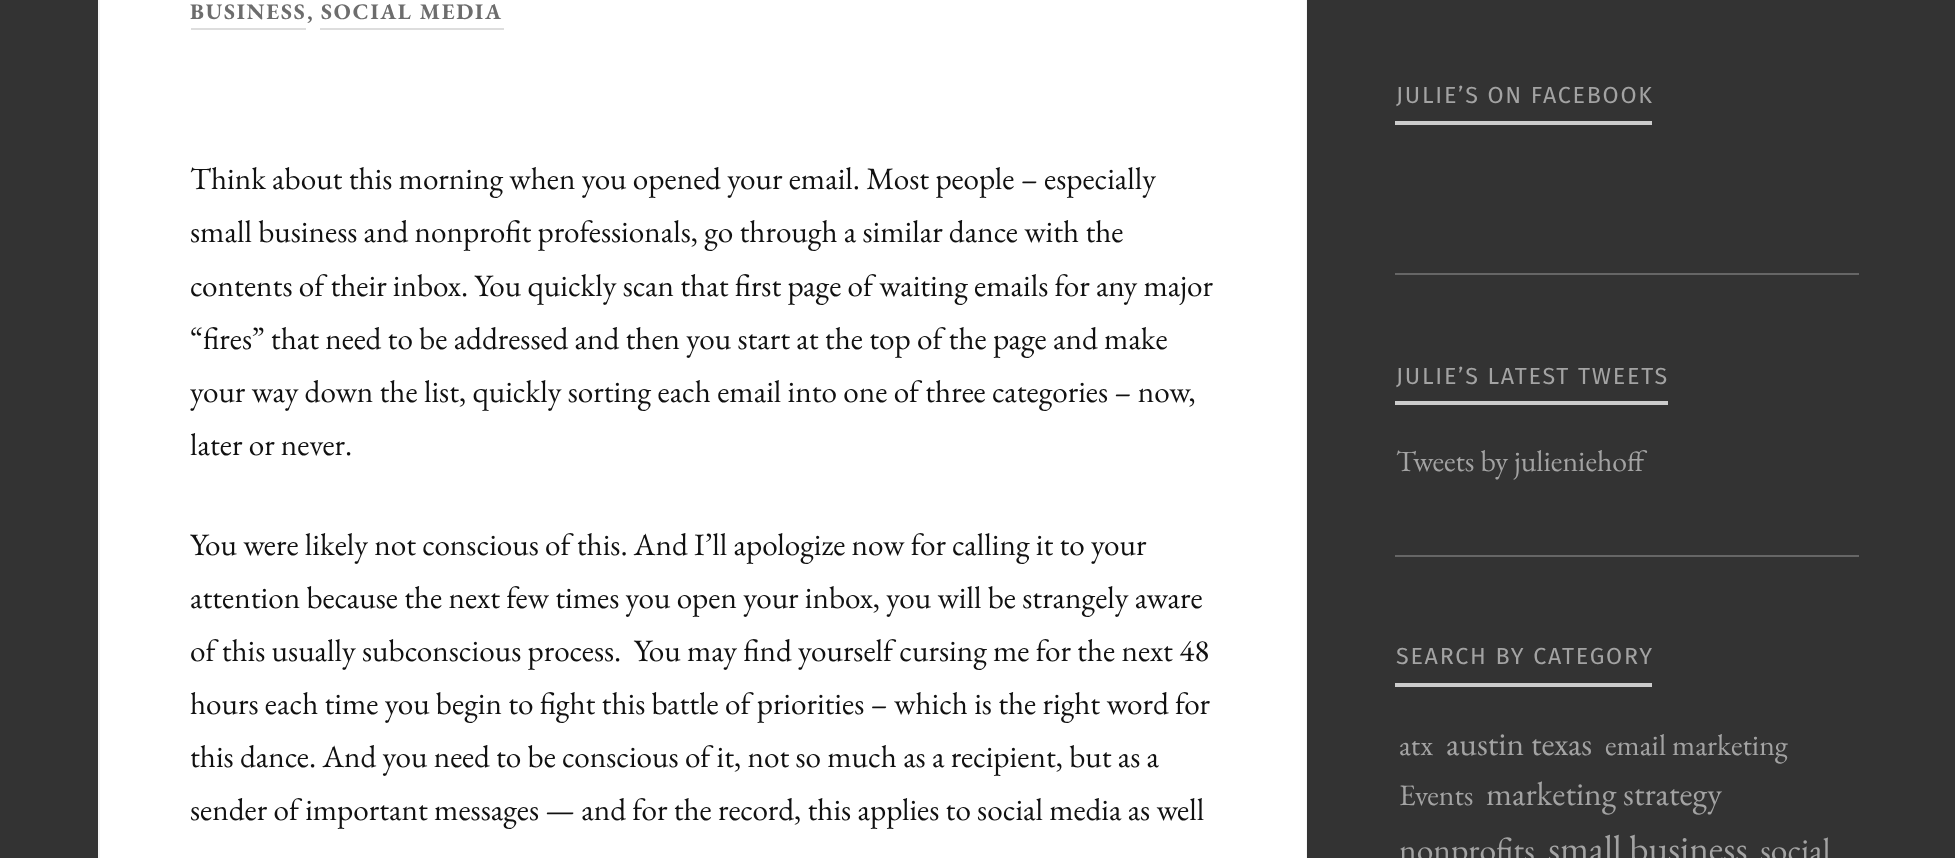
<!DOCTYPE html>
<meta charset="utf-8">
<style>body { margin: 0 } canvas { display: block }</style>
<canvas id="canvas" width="1955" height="858"></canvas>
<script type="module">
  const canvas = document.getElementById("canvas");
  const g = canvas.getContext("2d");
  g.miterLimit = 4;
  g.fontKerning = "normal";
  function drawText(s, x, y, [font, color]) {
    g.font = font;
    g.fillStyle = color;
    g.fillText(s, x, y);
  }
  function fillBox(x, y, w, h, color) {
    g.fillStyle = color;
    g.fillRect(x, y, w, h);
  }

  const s1 = ["bold 22.25px EB Garamond", "#6D6D6D"];
  const s2 = ["bold 22.25px EB Garamond", "#666666"];
  const s3 = ["31.25px EB Garamond", "#111111"];
  const s4 = ["23.25px Fira Sans", "#A3A3A3"];
  const s5 = ["29.75px EB Garamond", "#A3A3A3"];
  const s6 = ["33.5px EB Garamond", "#A3A3A3"];
  const s7 = ["37.25px EB Garamond", "#A3A3A3"];

  fillBox(0, 0, 1955, 858, "#333333");
  fillBox(100, 0, 1206, 858, "#FFFFFF");
  g.fillStyle = "#F5F5F5";
  g.beginPath();
  g.moveTo(1307, -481);
  g.lineTo(1307, 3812);
  g.lineTo(1306, 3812);
  g.lineTo(1306, -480);
  g.closePath();
  g.fill();
  g.beginPath();
  g.moveTo(98, 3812);
  g.lineTo(98, -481);
  g.lineTo(100, -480);
  g.lineTo(100, 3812);
  g.closePath();
  g.fill();
  g.letterSpacing = "1.75px";
  drawText("BUSINESS", 190, 19, s1);
  fillBox(191, 28, 115, 2, "#DDDDDD");
  drawText(",", 307, 19, s2);
  drawText("SOCIAL MEDIA", 321, 19, s1);
  fillBox(320, 28, 184, 2, "#DDDDDD");
  g.letterSpacing = "0px";
  drawText("Think about this morning when you opened your email. Most people – especially", 190, 189, s3);
  drawText("small business and nonprofit professionals, go through a similar dance with the", 190, 242, s3);
  drawText("contents of their inbox. You quickly scan that first page of waiting emails for any major", 190, 296, s3);
  drawText("“fires” that need to be addressed and then you start at the top of the page and make", 190, 349, s3);
  drawText("your way down the list, quickly sorting each email into one of three categories – now,", 190, 402, s3);
  drawText("later or never.", 190, 455, s3);
  drawText("You were likely not conscious of this. And I’ll apologize now for calling it to your", 190, 555, s3);
  drawText("attention because the next few times you open your inbox, you will be strangely aware", 190, 608, s3);
  drawText("of this usually subconscious process.  You may find yourself cursing me for the next 48", 190, 661, s3);
  drawText("hours each time you begin to fight this battle of priorities – which is the right word for", 190, 714, s3);
  drawText("this dance. And you need to be conscious of it, not so much as a recipient, but as a", 190, 767, s3);
  drawText("sender of important messages — and for the record, this applies to social media as well", 190, 820, s3);
  fillBox(1395, 121, 257, 4, "#CCCCCC");
  g.letterSpacing = "1.75px";
  drawText("JULIE’S ON FACEBOOK", 1396, 103, s4);
  fillBox(1395, 273, 464, 2, "#666666");
  fillBox(1395, 401, 273, 4, "#CCCCCC");
  drawText("JULIE’S LATEST TWEETS", 1396, 384, s4);
  g.letterSpacing = "0px";
  drawText("Tweets by julieniehoff", 1396, 471, s5);
  fillBox(1395, 555, 464, 2, "#666666");
  fillBox(1395, 683, 257, 4, "#CCCCCC");
  g.letterSpacing = "1.75px";
  drawText("SEARCH BY CATEGORY", 1396, 664, s4);
  g.letterSpacing = "0px";
  drawText("atx", 1399, 755, s5);
  drawText("austin texas", 1446, 755, s6);
  drawText("email marketing", 1605, 755, s5);
  drawText("Events", 1399, 805, s5);
  drawText("marketing strategy", 1486, 805, s6);
  drawText("nonprofits", 1399, 861, s6);
  drawText("small business", 1548, 861, s7);
  drawText("social", 1760, 861, s6);
</script>
